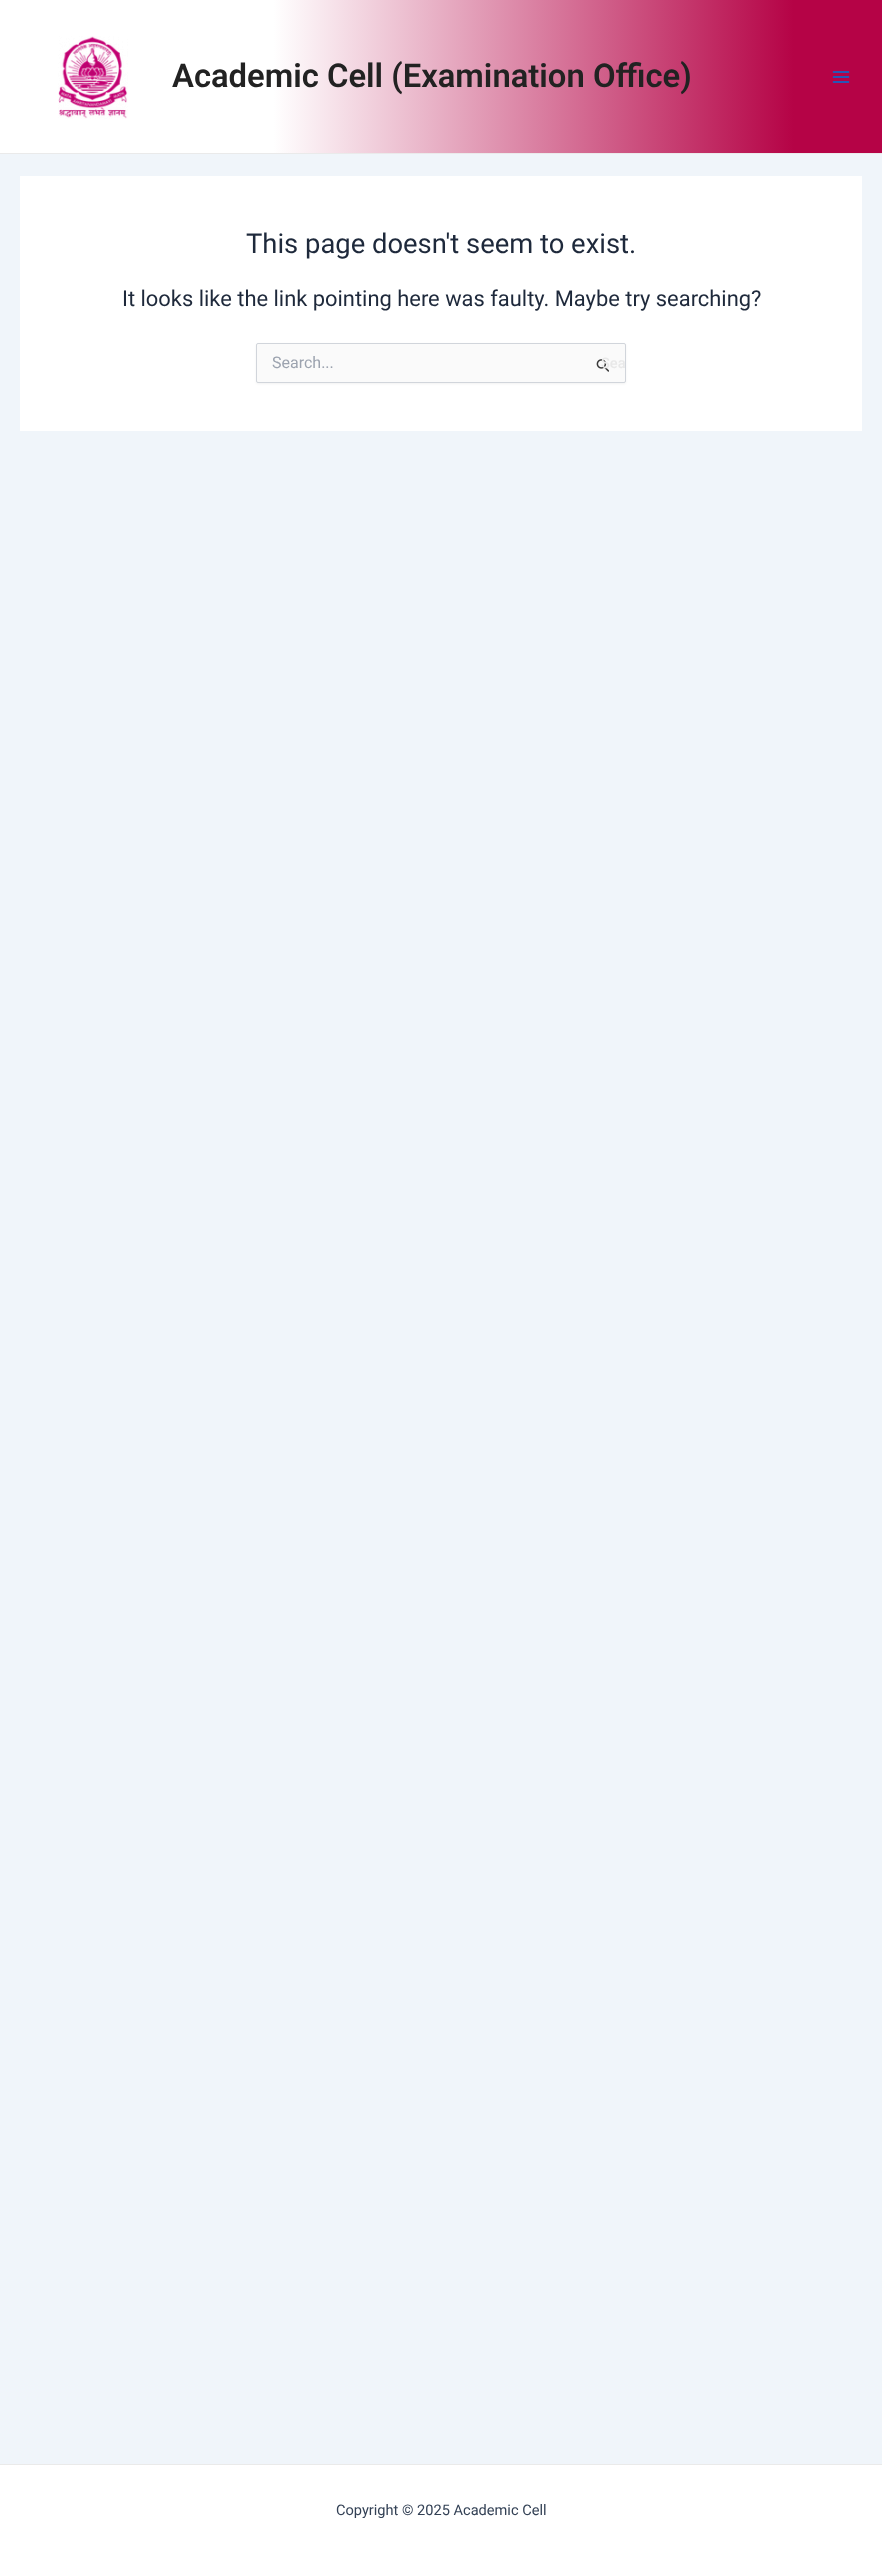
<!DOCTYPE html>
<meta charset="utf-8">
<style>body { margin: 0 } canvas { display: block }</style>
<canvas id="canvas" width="882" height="2565"></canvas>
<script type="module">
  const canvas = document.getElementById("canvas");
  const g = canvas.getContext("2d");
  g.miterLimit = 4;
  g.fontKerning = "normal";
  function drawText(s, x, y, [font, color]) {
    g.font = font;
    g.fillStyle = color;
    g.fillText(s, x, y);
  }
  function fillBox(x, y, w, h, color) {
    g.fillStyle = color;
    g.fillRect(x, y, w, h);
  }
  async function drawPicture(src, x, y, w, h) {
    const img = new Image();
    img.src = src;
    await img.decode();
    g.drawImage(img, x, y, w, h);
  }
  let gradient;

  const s1 = ["600 32.8px Roboto", "#222222"];
  const s2 = ["27.4px Roboto", "#1E293B"];
  const s3 = ["21.9px Roboto", "#1E293B"];
  const s4 = ["16px Roboto", "#9CA3AF"];
  const s5 = ["500 14.6px Roboto", "#E8E8E8"];
  const s6 = ["14.6px Roboto", "#334155"];

  fillBox(0, 0, 882, 2565, "#F0F5FA");
  gradient = g.createLinearGradient(0, 77, 882, 76);
  gradient.addColorStop(0.31, "#FFFFFF");
  gradient.addColorStop(0.9, "#B50346");
  g.fillStyle = gradient;
  g.fillRect(0, 0, 882, 153);
  fillBox(0, 153, 882, 1, "#EAEAEA");
  await drawPicture("pic1.png", 58, 36, 70, 83);
  drawText("Academic Cell (Examination Office)", 172, 87, s1);
  await drawPicture("pic2.png", 832, 71, 18, 12);
  fillBox(20, 176, 842, 255, "#FFFFFF");
  drawText("This page doesn't seem to exist.", 246, 253, s2);
  drawText("It looks like the link pointing here was faulty. Maybe try searching?", 122, 306, s3);
  g.fillStyle = "rgba(0, 0, 0, 0.05)";
  g.filter = "blur(1px)";
  g.beginPath();
  g.roundRect(256, 344, 370, 40, 2);
  g.fill();
  g.filter = "none";
  g.fillStyle = "#FAFAFA";
  g.beginPath();
  g.roundRect(256.5, 343.5, 369, 39, 1.5);
  g.fill();
  g.strokeStyle = "#D1D5DB";
  g.stroke();
  drawText("Search...", 272, 368, s4);
  await drawPicture("pic3.png", 596, 359, 13, 13);
  drawText("Sea", 601, 368, s5);
  fillBox(0, 2465, 882, 100, "#FFFFFF");
  fillBox(0, 2464, 882, 1, "#EAEAEA");
  drawText("Copyright © 2025 Academic Cell", 336, 2515, s6);
</script>
